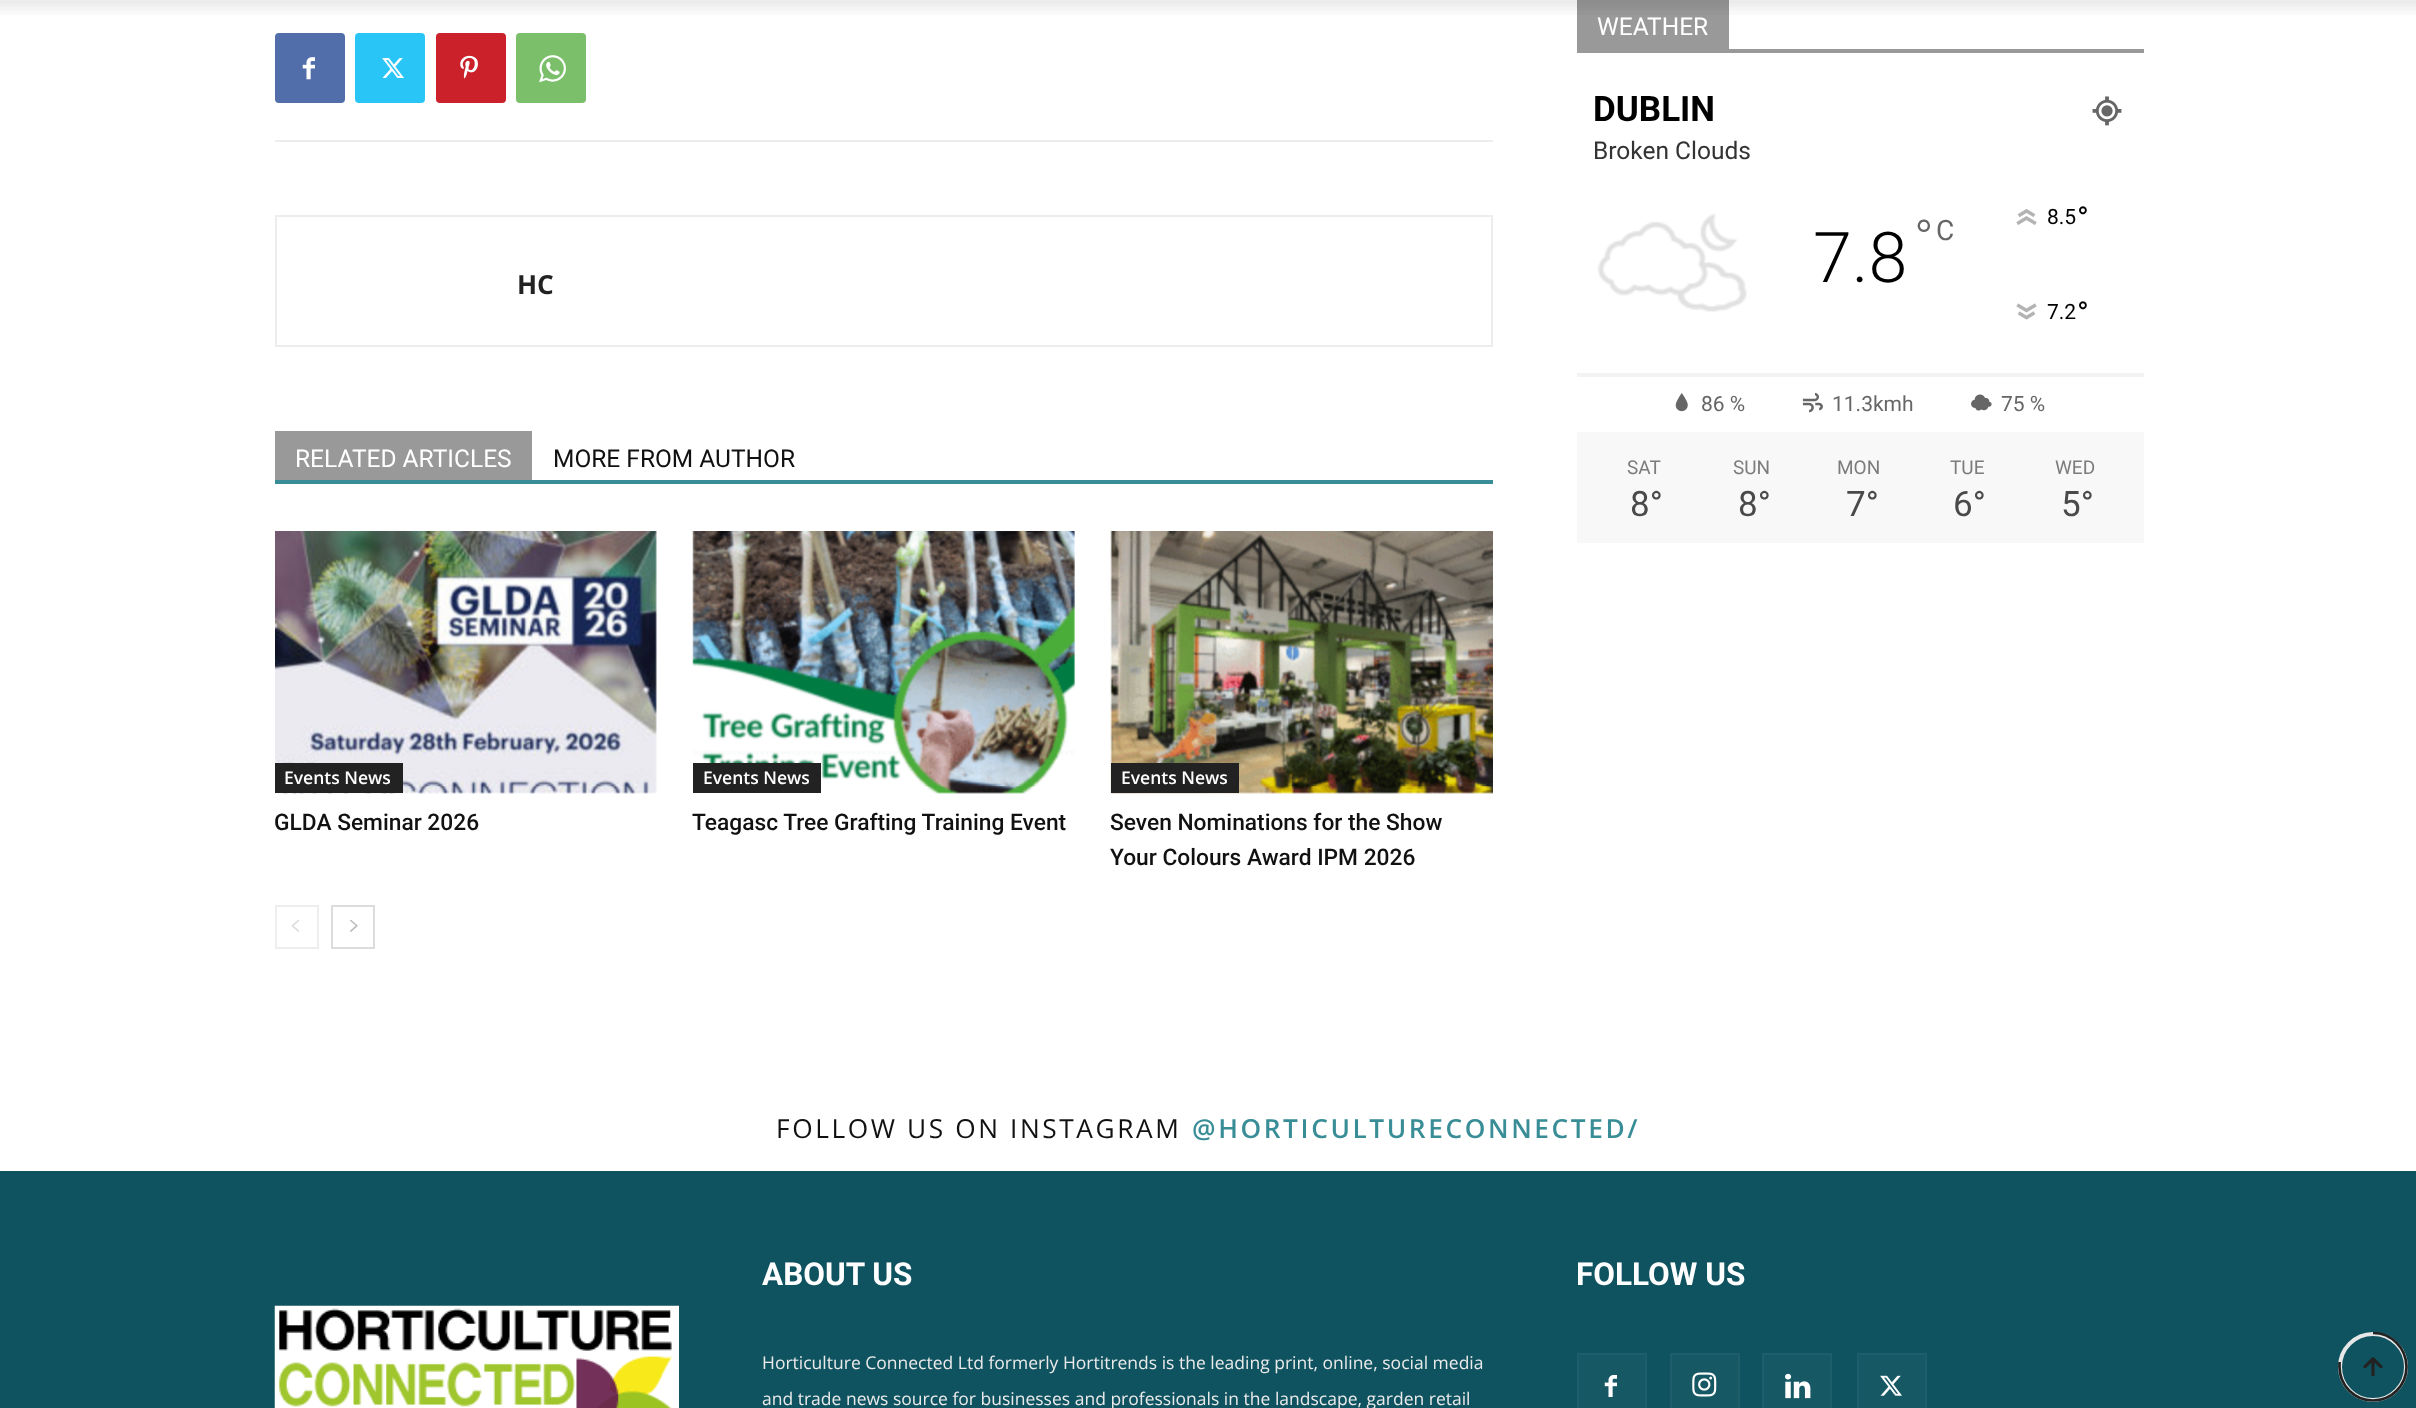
<!DOCTYPE html>
<meta charset="utf-8">
<style>body { margin: 0 } canvas { display: block }</style>
<canvas id="canvas" width="2416" height="1408"></canvas>
<script type="module">
  const canvas = document.getElementById("canvas");
  const g = canvas.getContext("2d");
  g.miterLimit = 4;
  g.fontKerning = "normal";
  function drawText(s, x, y, [font, color]) {
    g.font = font;
    g.fillStyle = color;
    g.fillText(s, x, y);
  }
  function fillBox(x, y, w, h, color) {
    g.fillStyle = color;
    g.fillRect(x, y, w, h);
  }
  function fillRounded(x, y, w, h, r, color) {
    g.fillStyle = color;
    g.beginPath();
    g.roundRect(x, y, w, h, r);
    g.fill();
  }
  async function drawPicture(src, x, y, w, h) {
    const img = new Image();
    img.src = src;
    await img.decode();
    g.drawImage(img, x, y, w, h);
  }

  const s1 = ["bold 26.25px Open Sans", "#222222"];
  const s2 = ["24.5px Roboto", "#FFFFFF"];
  const s3 = ["24.5px Roboto", "#111111"];
  const s4 = ["600 17.5px Open Sans", "#FFFFFF"];
  const s5 = ["500 22.75px Roboto", "#111111"];
  const s6 = ["bold 35px Roboto", "#000000"];
  const s7 = ["24.5px Roboto", "#333333"];
  const s8 = ["300 70px Roboto", "#000000"];
  const s9 = ["300 52px Roboto", "#666666"];
  const s10 = ["28px Roboto", "#666666"];
  const s11 = ["21px Roboto", "#000000"];
  const s12 = ["31.5px Roboto", "#000000"];
  const s13 = ["21px Roboto", "#666666"];
  const s14 = ["19px Roboto", "#7C7C7C"];
  const s15 = ["35px Roboto", "#4A4A4A"];
  const s16 = ["26.25px Open Sans", "#111111"];
  const s17 = ["600 26.25px Open Sans", "#398D96"];
  const s18 = ["bold 31.5px Roboto", "#FFFFFF"];
  const s19 = ["17.5px Open Sans", "#EAEAEA"];

  fillBox(0, 0, 2416, 1408, "#FFFFFF");
  fillBox(1577, 0, 152, 49, "#999999");
  await drawPicture("pic1.png", 0, 0, 2416, 15);
  fillBox(275, 140, 1218, 2, "#EDEDED");
  fillRounded(275, 33, 70, 70, 4, "#516EAB");
  await drawPicture("pic2.png", 302, 57, 13, 23);
  fillRounded(355, 33, 70, 70, 4, "#29C5F6");
  await drawPicture("pic3.png", 382, 58, 22, 20);
  fillRounded(436, 33, 70, 70, 4, "#CA212A");
  await drawPicture("pic4.png", 460, 55, 18, 24);
  fillRounded(516, 33, 70, 70, 4, "#7BBF6A");
  await drawPicture("pic5.png", 539, 55, 27, 28);
  g.strokeStyle = "#EDEDED";
  g.lineWidth = 2;
  g.strokeRect(276, 216, 1216, 130);
  drawText("HC", 517, 294, s1);
  fillBox(275, 480, 1218, 4, "#398D96");
  fillBox(275, 431, 257, 49, "#999999");
  drawText("RELATED ARTICLES", 295, 467, s2);
  drawText("MORE FROM AUTHOR", 553, 467, s3);
  await drawPicture("pic6.png", 275, 531, 382, 263);
  fillBox(275, 763, 128, 30, "#222222");
  drawText("Events News", 284, 784, s4);
  drawText("GLDA Seminar 2026", 274, 830, s5);
  await drawPicture("pic7.png", 692, 531, 383, 263);
  fillBox(693, 763, 128, 30, "#222222");
  drawText("Events News", 703, 784, s4);
  drawText("Teagasc Tree Grafting Training Event", 692, 830, s5);
  await drawPicture("pic8.png", 1110, 531, 383, 263);
  fillBox(1111, 763, 128, 30, "#222222");
  drawText("Events News", 1121, 784, s4);
  drawText("Seven Nominations for the Show", 1110, 830, s5);
  drawText("Your Colours Award IPM 2026", 1110, 865, s5);
  g.strokeStyle = "#EEEEEE";
  g.strokeRect(276, 906, 42, 42);
  await drawPicture("pic9.png", 291, 919, 9, 13);
  g.strokeStyle = "#DCDCDC";
  g.strokeRect(332, 906, 42, 42);
  await drawPicture("pic10.png", 350, 919, 8, 13);
  fillBox(1577, 49, 567, 4, "#999999");
  drawText("WEATHER", 1597, 35, s2);
  drawText("DUBLIN", 1593, 121, s6);
  await drawPicture("pic11.png", 2092, 96, 30, 30);
  drawText("Broken Clouds", 1593, 159, s7);
  await drawPicture("pic12.png", 1597, 213, 150, 99);
  drawText("7.8", 1813, 282, s8);
  drawText("°", 1914, 257, s9);
  drawText("C", 1936, 240, s10);
  await drawPicture("pic13.png", 2016, 209, 21, 16);
  drawText("8.5", 2047, 224, s11);
  drawText("°", 2077, 229, s12);
  await drawPicture("pic14.png", 2016, 303, 21, 17);
  drawText("7.2", 2047, 319, s11);
  drawText("°", 2077, 324, s12);
  fillBox(1577, 373, 567, 4, "#F3F3F3");
  await drawPicture("pic15.png", 1675, 393, 13, 19);
  drawText("86 %", 1701, 411, s13);
  await drawPicture("pic16.png", 1802, 392, 21, 21);
  drawText("11.3kmh", 1832, 411, s13);
  await drawPicture("pic17.png", 1971, 394, 21, 17);
  drawText("75 %", 2001, 411, s13);
  fillBox(1577, 432, 567, 111, "#F8F8F8");
  drawText("SAT", 1627, 474, s14);
  drawText("8°", 1630, 516, s15);
  drawText("SUN", 1733, 474, s14);
  drawText("8°", 1738, 516, s15);
  drawText("MON", 1837, 474, s14);
  drawText("7°", 1846, 516, s15);
  drawText("TUE", 1950, 474, s14);
  drawText("6°", 1953, 516, s15);
  drawText("WED", 2055, 474, s14);
  drawText("5°", 2061, 516, s15);
  g.letterSpacing = "2.6px";
  drawText("FOLLOW US ON INSTAGRAM", 776, 1138, s16);
  drawText("@HORTICULTURECONNECTED/", 1192, 1138, s17);
  fillBox(0, 1171, 2416, 237, "#105360");
  g.letterSpacing = "0px";
  drawText("ABOUT US", 762, 1285, s18);
  drawText("Horticulture Connected Ltd formerly Hortitrends is the leading print, online, social media", 762, 1369, s19);
  drawText("and trade news source for businesses and professionals in the landscape, garden retail", 762, 1405, s19);
  drawText("FOLLOW US", 1576, 1285, s18);
  fillBox(1579, 1355, 66, 53, "#175865");
  await drawPicture("pic18.png", 1604, 1375, 13, 22);
  g.strokeStyle = "#1E5D6A";
  g.strokeRect(1578, 1354, 68, 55);
  fillBox(1672, 1355, 66, 53, "#175865");
  await drawPicture("pic19.png", 1692, 1372, 25, 25);
  g.strokeRect(1671, 1354, 68, 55);
  fillBox(1764, 1355, 66, 53, "#175865");
  await drawPicture("pic20.png", 1785, 1373, 26, 26);
  g.strokeRect(1763, 1354, 68, 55);
  fillBox(1859, 1355, 66, 53, "#175865");
  await drawPicture("pic21.png", 1880, 1375, 22, 21);
  g.strokeRect(1858, 1354, 68, 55);
  await drawPicture("pic22.png", 274, 1305, 405, 103);
  g.beginPath();
  g.arc(2373, 1367, 33, 0, Math.PI * 2);
  g.strokeStyle = "#E7E7E7";
  g.lineWidth = 4;
  g.stroke();
  g.save();
  g.beginPath();
  g.rect(2338, 1332, 70, 70);
  g.clip();
  g.beginPath();
  g.moveTo(2373, 1333);
  g.bezierCurveTo(2391.5, 1333, 2406.5, 1348, 2406.5, 1367);
  g.bezierCurveTo(2406.5, 1385.5, 2391.5, 1400.5, 2373, 1400.5);
  g.bezierCurveTo(2354.5, 1400.5, 2339.5, 1385.5, 2339.5, 1367);
  g.lineTo(2339.5, 1362);
  g.strokeStyle = "#222222";
  g.lineWidth = 2.7;
  g.stroke();
  g.restore();
  await drawPicture("pic23.png", 2363, 1357, 20, 20);
</script>
